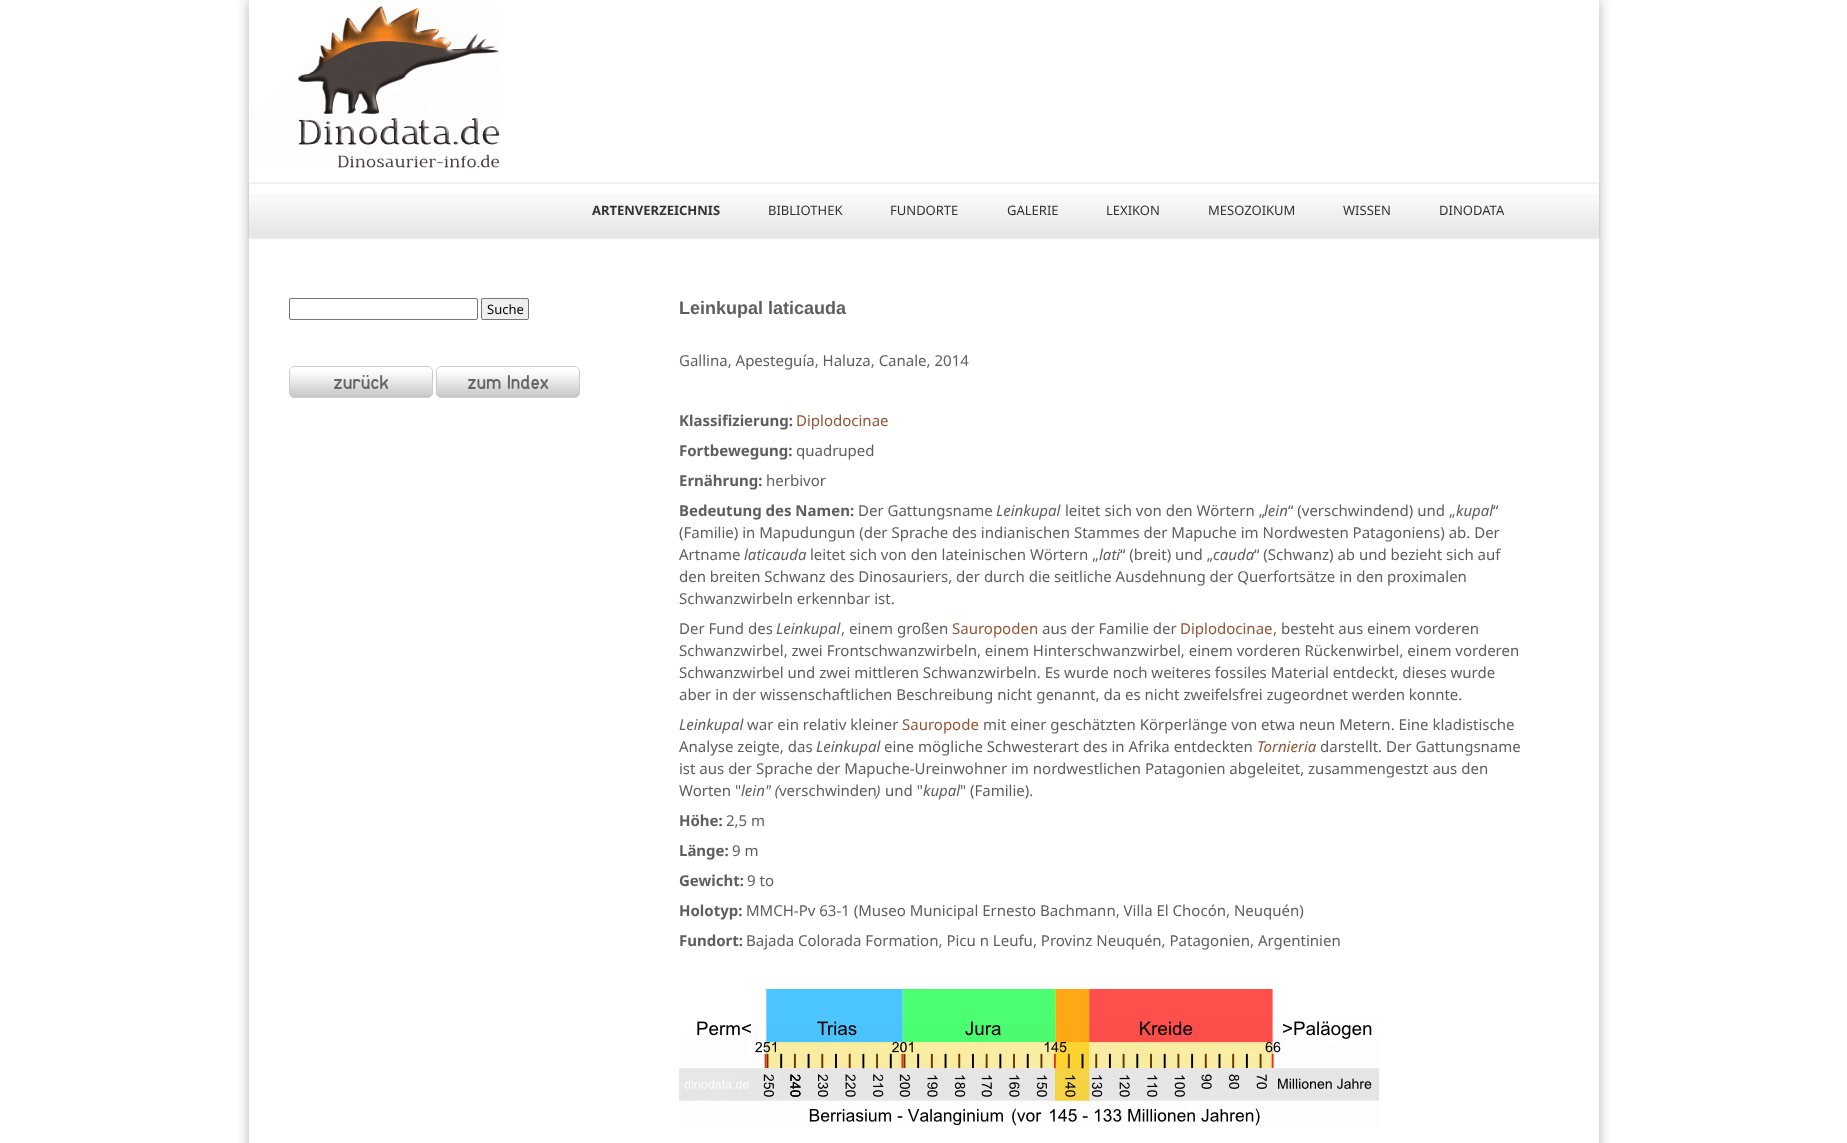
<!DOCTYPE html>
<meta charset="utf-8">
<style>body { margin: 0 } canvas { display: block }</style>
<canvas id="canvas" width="1847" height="1143"></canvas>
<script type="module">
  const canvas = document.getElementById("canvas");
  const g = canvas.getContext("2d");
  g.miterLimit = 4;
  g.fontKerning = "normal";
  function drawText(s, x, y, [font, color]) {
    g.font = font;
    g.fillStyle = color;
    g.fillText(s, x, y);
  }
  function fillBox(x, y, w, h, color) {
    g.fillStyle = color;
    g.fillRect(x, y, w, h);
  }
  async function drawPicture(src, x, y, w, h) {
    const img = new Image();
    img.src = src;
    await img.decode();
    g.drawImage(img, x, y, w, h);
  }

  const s1 = ["bold 13px Noto Sans", "#333333"];
  const s2 = ["13px Noto Sans", "#333333"];
  const s3 = ["13px Noto Sans", "#000000"];
  const s4 = ["bold 18px Liberation Sans", "#5E5E5E"];
  const s5 = ["15px Noto Sans", "#5E5E5E"];
  const s6 = ["bold 15px Noto Sans", "#5E5E5E"];
  const s7 = ["15px Noto Sans", "#905636"];
  const s8 = ["italic 15px Noto Sans", "#5E5E5E"];
  const s9 = ["italic 15px Noto Sans", "#905636"];

  fillBox(0, 0, 1847, 1143, "#FFFFFF");
  g.save();
  g.beginPath();
  g.moveTo(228, 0);
  g.lineTo(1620, 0);
  g.lineTo(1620, 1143);
  g.lineTo(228, 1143);
  g.closePath();
  g.moveTo(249, 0);
  g.lineTo(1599, 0);
  g.lineTo(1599, 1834);
  g.lineTo(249, 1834);
  g.closePath();
  g.clip("evenodd");
  g.fillStyle = "rgba(0, 0, 0, 0.3)";
  g.filter = "blur(6.5px)";
  g.beginPath();
  g.rect(249, 0, 1350, 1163);
  g.fill();
  g.filter = "none";
  g.restore();
  await drawPicture("pic1.png", 252, 6, 248, 162);
  g.save();
  g.beginPath();
  g.moveTo(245, 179);
  g.lineTo(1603, 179);
  g.lineTo(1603, 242);
  g.lineTo(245, 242);
  g.closePath();
  g.moveTo(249, 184);
  g.lineTo(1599, 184);
  g.lineTo(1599, 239);
  g.lineTo(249, 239);
  g.closePath();
  g.clip("evenodd");
  g.fillStyle = "rgba(0, 0, 0, 0.1)";
  g.filter = "blur(1px)";
  g.beginPath();
  g.rect(249, 183, 1350, 55);
  g.fill();
  g.filter = "none";
  g.restore();
  await drawPicture("pic2.png", 249, 194, 1350, 45);
  drawText("ARTENVERZEICHNIS", 592, 215, s1);
  drawText("BIBLIOTHEK", 768, 215, s2);
  drawText("FUNDORTE", 890, 215, s2);
  drawText("GALERIE", 1007, 215, s2);
  drawText("LEXIKON", 1106, 215, s2);
  drawText("MESOZOIKUM", 1208, 215, s2);
  drawText("WISSEN", 1343, 215, s2);
  drawText("DINODATA", 1439, 215, s2);
  g.beginPath();
  g.roundRect(289.5, 298.5, 188, 21, 1.5);
  g.strokeStyle = "#767676";
  g.stroke();
  g.fillStyle = "#EFEFEF";
  g.beginPath();
  g.roundRect(481.5, 298.5, 47, 21, 1.5);
  g.fill();
  g.stroke();
  drawText("Suche", 487, 314, s3);
  await drawPicture("pic3.png", 289, 366, 144, 32);
  await drawPicture("pic4.png", 436, 366, 144, 32);
  drawText("Leinkupal laticauda", 679, 314, s4);
  drawText("Gallina, Apesteguía, Haluza, Canale, 2014", 679, 366, s5);
  drawText("Klassifizierung:", 679, 426, s6);
  drawText("Diplodocinae", 796, 426, s7);
  drawText("Fortbewegung:", 679, 456, s6);
  drawText("quadruped", 796, 456, s5);
  drawText("Ernährung:", 679, 486, s6);
  drawText("herbivor", 766, 486, s5);
  drawText("Bedeutung des Namen:", 679, 516, s6);
  drawText("Der Gattungsname", 858, 516, s5);
  drawText("Leinkupal", 996, 516, s8);
  drawText("leitet sich von den Wörtern „", 1065, 516, s5);
  drawText("lein", 1264, 516, s8);
  drawText("“ (verschwindend) und „", 1288, 516, s5);
  drawText("kupal", 1456, 516, s8);
  drawText("“", 1493, 516, s5);
  drawText("(Familie) in Mapudungun (der Sprache des indianischen Stammes der Mapuche im Nordwesten Patagoniens) ab. Der", 679, 538, s5);
  drawText("Artname", 679, 560, s5);
  drawText("laticauda", 744, 560, s8);
  drawText("leitet sich von den lateinischen Wörtern „", 810, 560, s5);
  drawText("lati", 1099, 560, s8);
  drawText("“ (breit) und „", 1120, 560, s5);
  drawText("cauda", 1213, 560, s8);
  drawText("“ (Schwanz) ab und bezieht sich auf", 1254, 560, s5);
  drawText("den breiten Schwanz des Dinosauriers, der durch die seitliche Ausdehnung der Querfortsätze in den proximalen", 679, 582, s5);
  drawText("Schwanzwirbeln erkennbar ist.", 679, 604, s5);
  drawText("Der Fund des", 679, 634, s5);
  drawText("Leinkupal", 776, 634, s8);
  drawText(", einem großen", 841, 634, s5);
  drawText("Sauropoden", 952, 634, s7);
  drawText("aus der Familie der", 1042, 634, s5);
  drawText("Diplodocinae", 1180, 634, s7);
  drawText(", besteht aus einem vorderen", 1273, 634, s5);
  drawText("Schwanzwirbel, zwei Frontschwanzwirbeln, einem Hinterschwanzwirbel, einem vorderen Rückenwirbel, einem vorderen", 679, 656, s5);
  drawText("Schwanzwirbel und zwei mittleren Schwanzwirbeln. Es wurde noch weiteres fossiles Material entdeckt, dieses wurde", 679, 678, s5);
  drawText("aber in der wissenschaftlichen Beschreibung nicht genannt, da es nicht zweifelsfrei zugeordnet werden konnte.", 679, 700, s5);
  drawText("Leinkupal", 679, 730, s8);
  drawText("war ein relativ kleiner", 747, 730, s5);
  drawText("Sauropode", 902, 730, s7);
  drawText("mit einer geschätzten Körperlänge von etwa neun Metern. Eine kladistische", 983, 730, s5);
  drawText("Analyse zeigte, das", 679, 752, s5);
  drawText("Leinkupal", 816, 752, s8);
  drawText("eine mögliche Schwesterart des in Afrika entdeckten", 884, 752, s5);
  drawText("Tornieria", 1257, 752, s9);
  drawText("darstellt. Der Gattungsname", 1320, 752, s5);
  drawText("ist aus der Sprache der Mapuche-Ureinwohner im nordwestlichen Patagonien abgeleitet, zusammengestzt aus den", 679, 774, s5);
  drawText("Worten \"", 679, 796, s5);
  drawText("lein\" (", 741, 796, s8);
  drawText("verschwinden", 779, 796, s5);
  drawText(")", 876, 796, s8);
  drawText("und \"", 885, 796, s5);
  drawText("kupal", 923, 796, s8);
  drawText("\" (Familie).", 960, 796, s5);
  drawText("Höhe:", 679, 826, s6);
  drawText("2,5 m", 726, 826, s5);
  drawText("Länge:", 679, 856, s6);
  drawText("9 m", 732, 856, s5);
  drawText("Gewicht:", 679, 886, s6);
  drawText("9 to", 747, 886, s5);
  drawText("Holotyp:", 679, 916, s6);
  drawText("MMCH-Pv 63-1 (Museo Municipal Ernesto Bachmann, Villa El Chocón, Neuquén)", 746, 916, s5);
  drawText("Fundort:", 679, 946, s6);
  drawText("Bajada Colorada Formation, Picu n Leufu, Provinz Neuquén, Patagonien, Argentinien", 746, 946, s5);
  await drawPicture("pic5.png", 679, 989, 700, 137);
</script>
